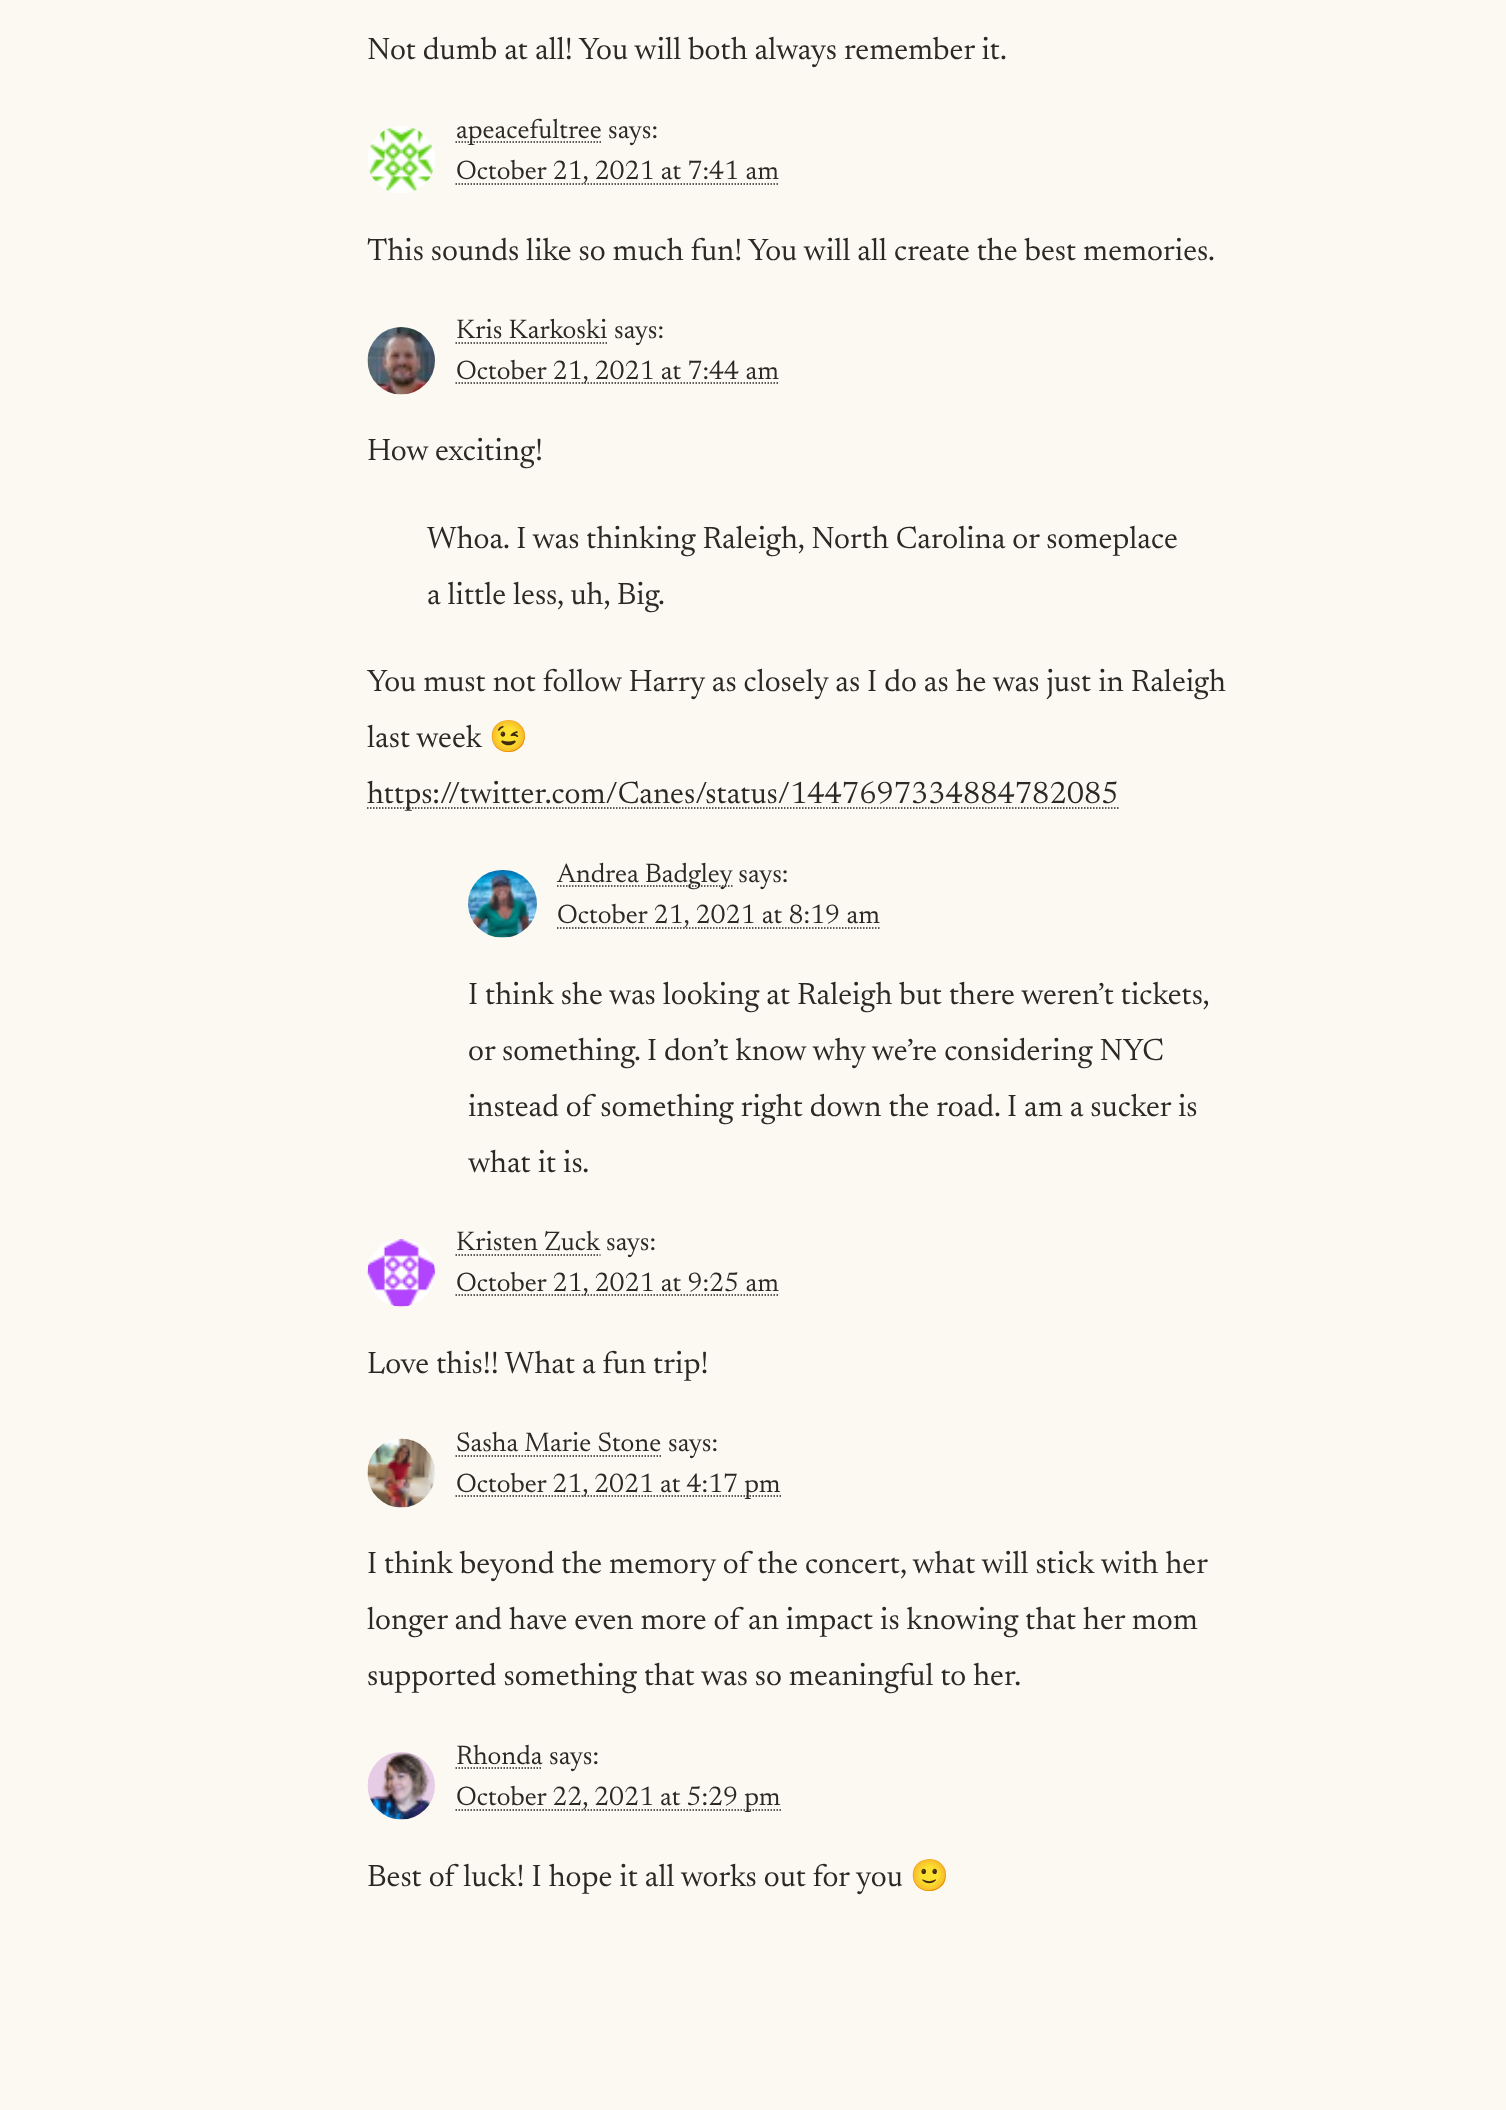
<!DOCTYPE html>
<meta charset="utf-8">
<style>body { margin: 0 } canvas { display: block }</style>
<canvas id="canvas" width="1506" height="2110"></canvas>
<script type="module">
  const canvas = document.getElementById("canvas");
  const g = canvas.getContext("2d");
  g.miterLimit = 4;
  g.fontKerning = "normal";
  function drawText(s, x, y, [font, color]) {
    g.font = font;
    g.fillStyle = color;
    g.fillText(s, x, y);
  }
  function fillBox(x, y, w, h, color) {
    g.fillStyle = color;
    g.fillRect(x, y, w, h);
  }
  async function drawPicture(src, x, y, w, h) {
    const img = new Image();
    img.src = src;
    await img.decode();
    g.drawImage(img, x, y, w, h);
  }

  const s1 = ["31.2px Newsreader", "#2B2924"];
  const s2 = ["27.25px 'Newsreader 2'", "#2B2924"];
  const s3 = ["31.2px Noto Color Emoji", "#2B2924"];

  fillBox(0, 0, 1506, 2110, "#FBF9F2");
  drawText("Not dumb at all! You will both always remember it.", 367, 59, s1);
  await drawPicture("pic1.png", 368, 126, 67, 67);
  g.beginPath();
  g.moveTo(455.5, 142);
  g.lineTo(602, 142);
  g.strokeStyle = "#2B2924";
  g.lineWidth = 1.5;
  g.setLineDash([1.5, 1.5]);
  g.stroke();
  drawText("apeacefultree", 456, 138, s2);
  drawText("says:", 608, 138, s2);
  g.beginPath();
  g.moveTo(455.5, 184);
  g.lineTo(779, 184);
  g.stroke();
  g.wordSpacing = "0.25px";
  drawText("October 21, 2021 at 7:41 am", 456, 179, s2);
  g.wordSpacing = "0px";
  drawText("This sounds like so much fun!", 367, 260, s1);
  drawText("You will all create the best memories.", 748, 260, s1);
  await drawPicture("pic2.png", 367, 327, 68, 68);
  drawText("Kris Karkoski", 456, 338, s2);
  g.beginPath();
  g.moveTo(455.5, 343);
  g.lineTo(607.5, 343);
  g.stroke();
  drawText("says:", 614, 338, s2);
  g.beginPath();
  g.moveTo(455.5, 383);
  g.lineTo(779, 383);
  g.stroke();
  g.wordSpacing = "0.25px";
  drawText("October 21, 2021 at 7:44 am", 456, 379, s2);
  g.wordSpacing = "0px";
  drawText("How exciting!", 367, 460, s1);
  drawText("Whoa. I was thinking Raleigh, North Carolina or someplace", 427, 548, s1);
  drawText("a little less, uh, Big.", 427, 604, s1);
  drawText("You must not follow Harry as closely as I do as he was just in Raleigh", 367, 691, s1);
  drawText("last week", 367, 747, s1);
  drawText("😉", 489, 747, s3);
  g.beginPath();
  g.moveTo(367, 808);
  g.lineTo(1118.5, 808);
  g.stroke();
  drawText("https://twitter.com/Canes/status/1447697334884782085", 367, 803, s1);
  await drawPicture("pic3.png", 468, 870, 69, 68);
  g.beginPath();
  g.moveTo(557, 886);
  g.lineTo(733, 886);
  g.stroke();
  drawText("Andrea Badgley says:", 557, 882, s2);
  g.beginPath();
  g.moveTo(557, 928);
  g.lineTo(880, 928);
  g.stroke();
  g.wordSpacing = "0.25px";
  drawText("October 21, 2021 at 8:19 am", 557, 923, s2);
  g.wordSpacing = "0px";
  drawText("I think she was looking at Raleigh but there weren’t tickets,", 468, 1004, s1);
  drawText("or something. I don’t know why we’re considering NYC", 468, 1060, s1);
  drawText("instead of something right down the road. I am a sucker is", 468, 1116, s1);
  drawText("what it is.", 468, 1172, s1);
  await drawPicture("pic4.png", 367, 1239, 68, 68);
  drawText("Kristen Zuck", 456, 1250, s2);
  g.beginPath();
  g.moveTo(455.5, 1255);
  g.lineTo(600.5, 1255);
  g.stroke();
  drawText("says:", 606, 1250, s2);
  g.beginPath();
  g.moveTo(455.5, 1295);
  g.lineTo(779, 1295);
  g.stroke();
  g.wordSpacing = "0.25px";
  drawText("October 21, 2021 at 9:25 am", 456, 1291, s2);
  g.wordSpacing = "0px";
  drawText("Love this!! What a fun trip!", 367, 1373, s1);
  await drawPicture("pic5.png", 367, 1438, 68, 70);
  drawText("Sasha Marie Stone", 456, 1451, s2);
  g.beginPath();
  g.moveTo(455.5, 1456);
  g.lineTo(662, 1456);
  g.stroke();
  drawText("says:", 668, 1451, s2);
  g.beginPath();
  g.moveTo(455.5, 1496);
  g.lineTo(781.5, 1496);
  g.stroke();
  drawText("October 21, 2021 at 4:17 pm", 456, 1492, s2);
  drawText("I think beyond the memory of the concert, what will stick with her", 367, 1573, s1);
  drawText("longer and have even more of an impact is knowing that her mom", 367, 1629, s1);
  drawText("supported something that was so meaningful to her.", 367, 1685, s1);
  await drawPicture("pic6.png", 367, 1752, 68, 68);
  drawText("Rhonda", 456, 1764, s2);
  g.beginPath();
  g.moveTo(455.5, 1768);
  g.lineTo(542.5, 1768);
  g.stroke();
  drawText("says:", 549, 1764, s2);
  g.beginPath();
  g.moveTo(455.5, 1810);
  g.lineTo(781.5, 1810);
  g.stroke();
  drawText("October 22, 2021 at 5:29 pm", 456, 1805, s2);
  drawText("Best of luck! I hope it all works out for you", 367, 1886, s1);
  drawText("🙂", 910, 1886, s3);
</script>
